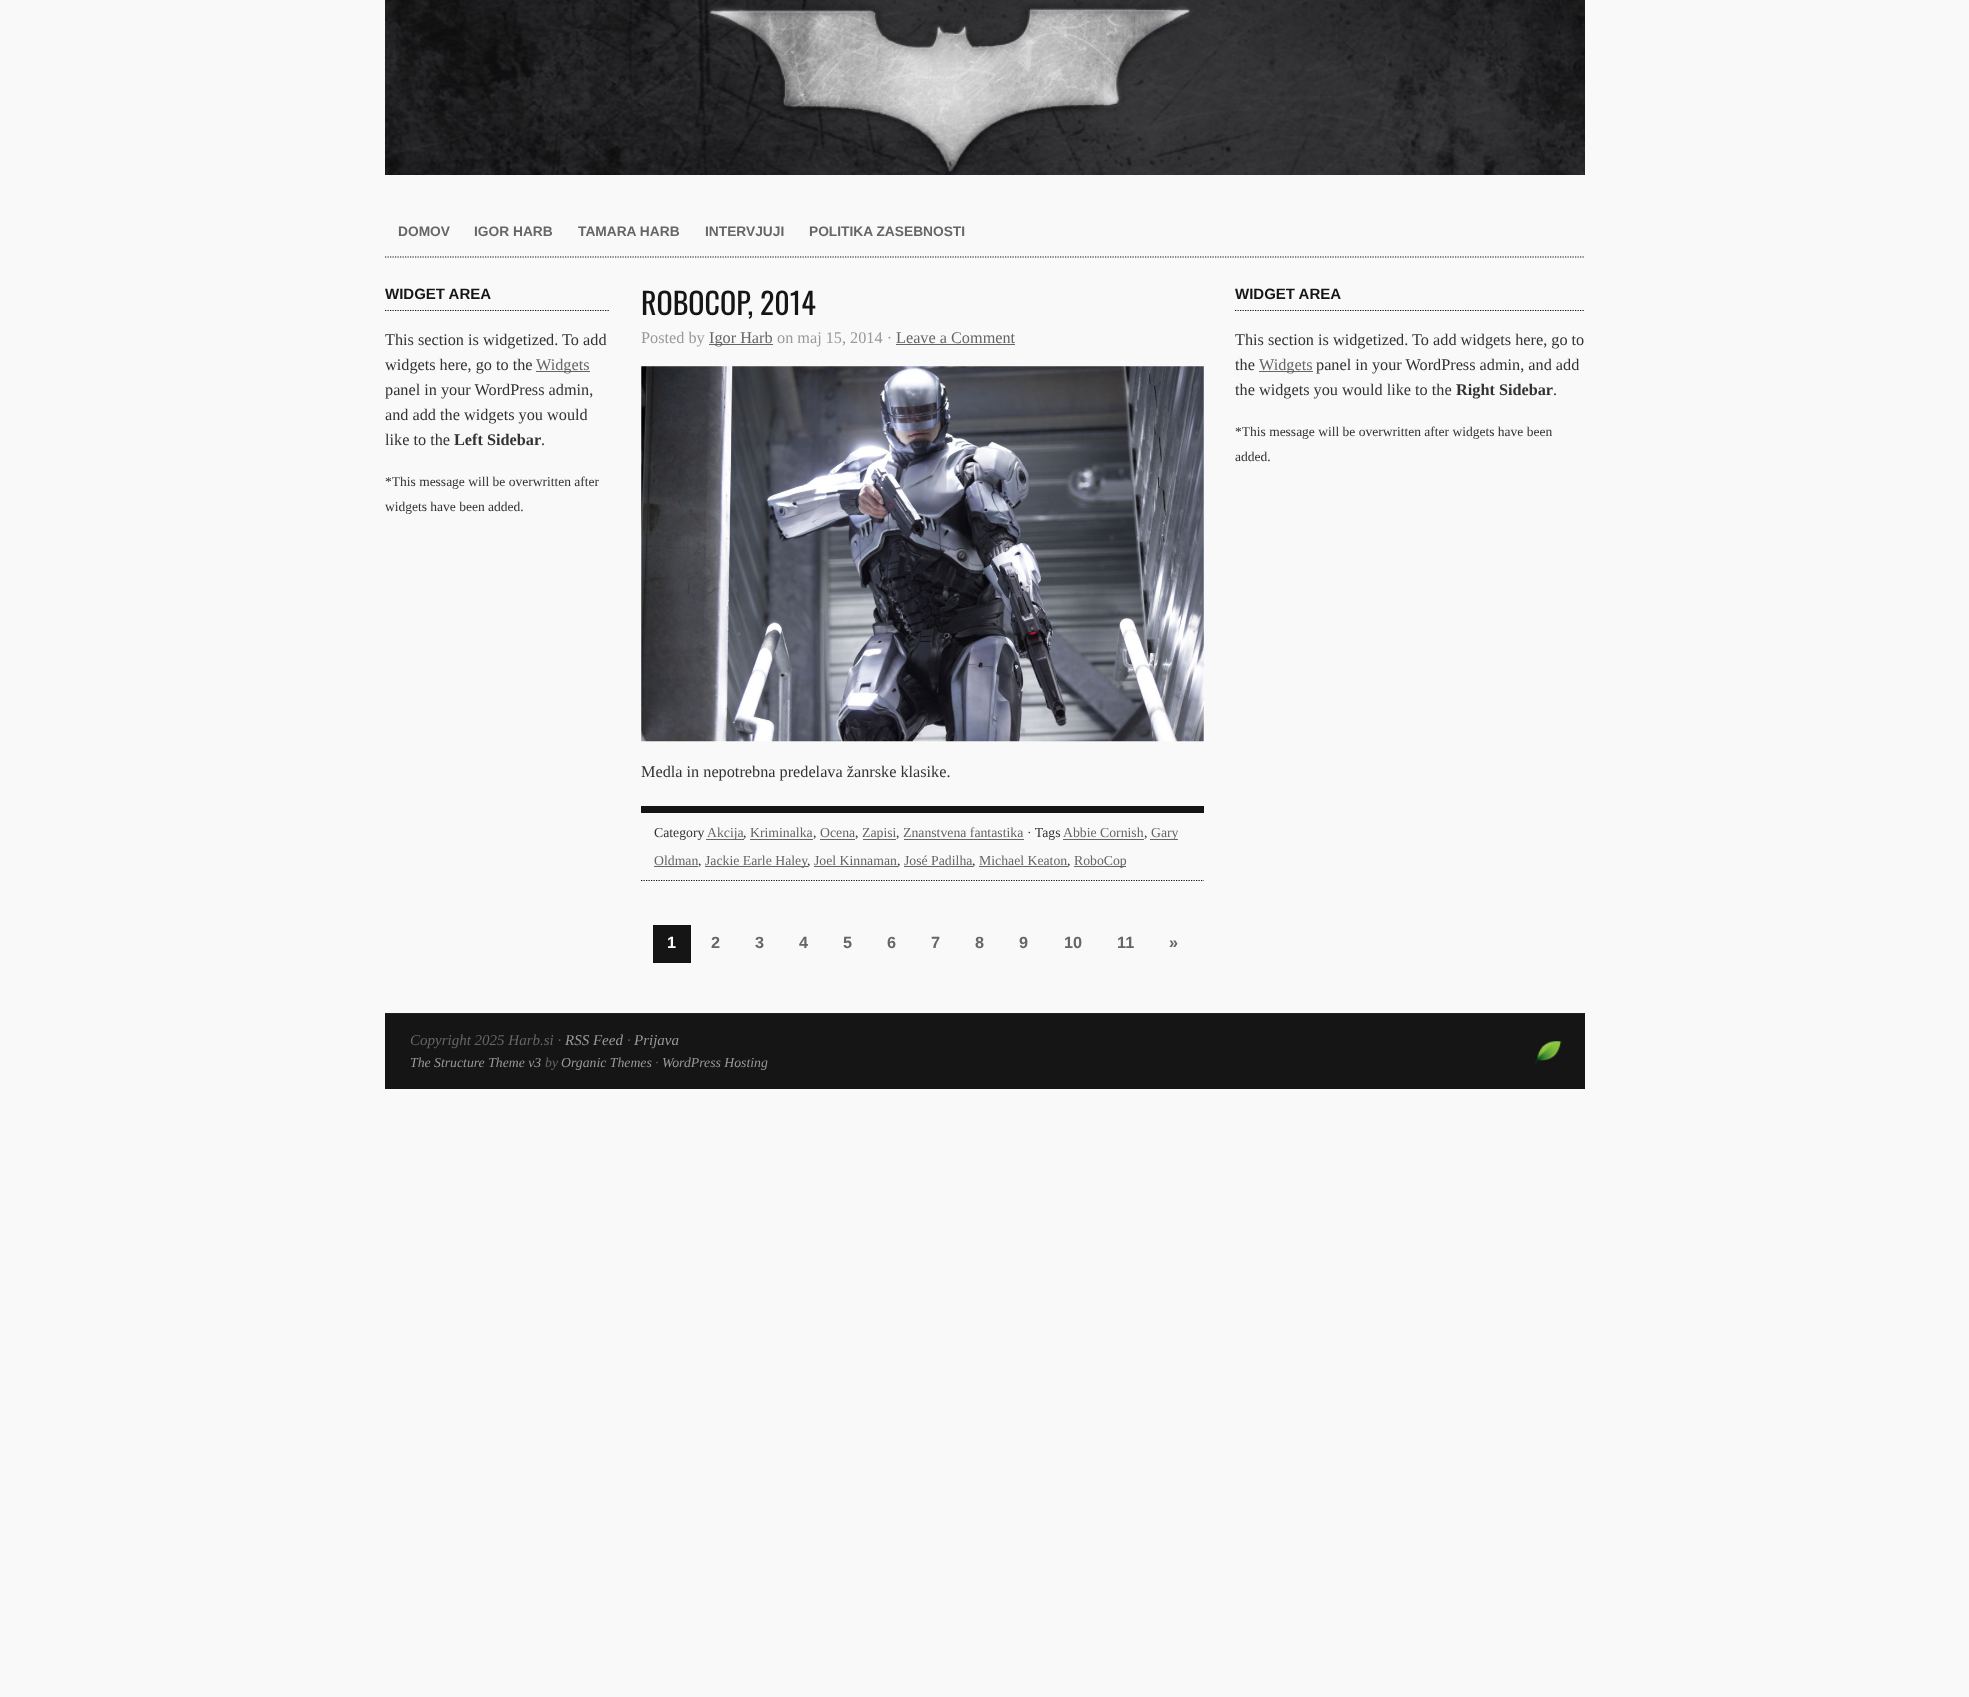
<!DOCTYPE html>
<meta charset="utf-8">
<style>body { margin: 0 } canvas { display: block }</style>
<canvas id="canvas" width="1969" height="1697"></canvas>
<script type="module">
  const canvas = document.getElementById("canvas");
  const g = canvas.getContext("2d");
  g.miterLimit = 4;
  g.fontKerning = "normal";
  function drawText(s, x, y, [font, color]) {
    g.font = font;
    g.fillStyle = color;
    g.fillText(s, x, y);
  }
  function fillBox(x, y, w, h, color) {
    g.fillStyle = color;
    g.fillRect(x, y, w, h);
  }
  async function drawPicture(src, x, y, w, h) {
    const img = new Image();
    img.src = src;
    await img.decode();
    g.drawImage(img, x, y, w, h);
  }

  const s1 = ["bold 13.75px Liberation Sans", "#666666"];
  const s2 = ["bold 15px Liberation Sans", "#151515"];
  const s3 = ["16.25px Liberation Serif", "#333333"];
  const s4 = ["16.25px Liberation Serif", "#666666"];
  const s5 = ["bold 16.25px Liberation Serif", "#333333"];
  const s6 = ["13.5px Liberation Serif", "#333333"];
  const s7 = ["30px Oswald", "#151515"];
  const s8 = ["16.25px Liberation Serif", "#999999"];
  const s9 = ["13.75px Liberation Serif", "#333333"];
  const s10 = ["13.75px Liberation Serif", "#666666"];
  const s11 = ["bold 16.25px Liberation Sans", "#FFFFFF"];
  const s12 = ["bold 16.25px Liberation Sans", "#666666"];
  const s13 = ["italic 15px Liberation Serif", "#666666"];
  const s14 = ["italic 15px Liberation Serif", "#999999"];
  const s15 = ["italic 13.75px Liberation Serif", "#999999"];
  const s16 = ["italic 13.75px Liberation Serif", "#666666"];

  fillBox(0, 0, 1969, 1697, "#F9F9F9");
  await drawPicture("pic1.png", 385, 0, 1200, 175);
  drawText("DOMOV", 398, 236, s1);
  drawText("IGOR HARB", 474, 236, s1);
  drawText("TAMARA HARB", 578, 236, s1);
  drawText("INTERVJUJI", 705, 236, s1);
  drawText("POLITIKA ZASEBNOSTI", 809, 236, s1);
  g.beginPath();
  g.moveTo(385, 257);
  g.lineTo(1585, 257);
  g.strokeStyle = "#151515";
  g.lineWidth = 1.2;
  g.setLineDash([1.25, 1.25]);
  g.stroke();
  g.beginPath();
  g.moveTo(385, 310.5);
  g.lineTo(610, 310.5);
  g.stroke();
  drawText("WIDGET AREA", 385, 299, s2);
  drawText("This section is widgetized. To add", 385, 345, s3);
  drawText("widgets here, go to the", 385, 370, s3);
  fillBox(536, 371, 54, 1, "#666666");
  drawText("Widgets", 536, 370, s4);
  drawText("panel in your WordPress admin,", 385, 395, s3);
  drawText("and add the widgets you would", 385, 420, s3);
  drawText("like to the", 385, 445, s3);
  drawText("Left Sidebar", 454, 445, s5);
  drawText(".", 541, 445, s3);
  drawText("*This message will be overwritten after", 385, 486, s6);
  drawText("widgets have been added.", 385, 511, s6);
  drawText("ROBOCOP, 2014", 641, 315, s7);
  drawText("Posted by", 641, 343, s8);
  fillBox(709, 344, 64, 1, "#666666");
  drawText("Igor Harb", 709, 343, s4);
  drawText("on maj 15, 2014 ·", 777, 343, s8);
  drawText("Leave a Comment", 896, 343, s4);
  fillBox(896, 344, 119, 1, "#666666");
  await drawPicture("pic2.png", 641, 366, 563, 376);
  drawText("Medla in nepotrebna predelava žanrske klasike.", 641, 777, s3);
  fillBox(641, 806, 563, 7, "#151515");
  g.beginPath();
  g.moveTo(641, 880.5);
  g.lineTo(1204, 880.5);
  g.stroke();
  drawText("Category", 654, 837, s9);
  fillBox(706, 839, 38, 1, "#666666");
  drawText("Akcija", 707, 837, s10);
  drawText(",", 743, 837, s9);
  drawText("Kriminalka", 750, 837, s10);
  fillBox(750, 839, 63, 1, "#666666");
  drawText(",", 813, 837, s9);
  drawText("Ocena", 820, 837, s10);
  fillBox(820, 839, 35, 1, "#666666");
  drawText(",", 855, 837, s9);
  fillBox(863, 839, 33, 1, "#666666");
  drawText("Zapisi", 862, 837, s10);
  drawText(",", 896, 837, s9);
  drawText("Znanstvena fantastika", 903, 837, s10);
  fillBox(904, 839, 120, 1, "#666666");
  drawText("· Tags", 1027, 837, s9);
  drawText("Abbie Cornish", 1063, 837, s10);
  fillBox(1063, 839, 81, 1, "#666666");
  drawText(",", 1144, 837, s9);
  fillBox(1150, 839, 28, 1, "#666666");
  drawText("Gary", 1151, 837, s10);
  drawText("Oldman", 654, 865, s10);
  fillBox(654, 866, 44, 1, "#666666");
  drawText(",", 698, 865, s9);
  fillBox(705, 866, 103, 1, "#666666");
  drawText("Jackie Earle Haley", 705, 865, s10);
  drawText(",", 807, 865, s9);
  drawText("Joel Kinnaman", 814, 865, s10);
  fillBox(814, 866, 84, 1, "#666666");
  drawText(",", 897, 865, s9);
  drawText("José Padilha", 904, 865, s10);
  fillBox(904, 866, 69, 1, "#666666");
  drawText(",", 972, 865, s9);
  drawText("Michael Keaton", 979, 865, s10);
  fillBox(979, 866, 89, 1, "#666666");
  drawText(",", 1067, 865, s9);
  fillBox(1074, 866, 52, 1, "#666666");
  drawText("RoboCop", 1074, 865, s10);
  fillBox(653, 925, 38, 38, "#151515");
  drawText("1", 667, 948, s11);
  drawText("2", 711, 948, s12);
  drawText("3", 755, 948, s12);
  drawText("4", 799, 948, s12);
  drawText("5", 843, 948, s12);
  drawText("6", 887, 948, s12);
  drawText("7", 931, 948, s12);
  drawText("8", 975, 948, s12);
  drawText("9", 1019, 948, s12);
  drawText("10", 1064, 948, s12);
  drawText("11", 1117, 948, s12);
  drawText("»", 1169, 948, s12);
  g.beginPath();
  g.moveTo(1235, 310.5);
  g.lineTo(1585, 310.5);
  g.stroke();
  drawText("WIDGET AREA", 1235, 299, s2);
  drawText("This section is widgetized. To add widgets here, go to", 1235, 345, s3);
  drawText("the", 1235, 370, s3);
  fillBox(1259, 371, 54, 1, "#666666");
  drawText("Widgets", 1259, 370, s4);
  drawText("panel in your WordPress admin, and add", 1316, 370, s3);
  drawText("the widgets you would like to the", 1235, 395, s3);
  drawText("Right Sidebar", 1456, 395, s5);
  drawText(".", 1553, 395, s3);
  drawText("*This message will be overwritten after widgets have been", 1235, 436, s6);
  drawText("added.", 1235, 461, s6);
  fillBox(385, 1014, 1200, 75, "#151515");
  fillBox(385, 1013, 1200, 1, "#222222");
  drawText("Copyright 2025 Harb.si ·", 410, 1045, s13);
  drawText("RSS Feed", 565, 1045, s14);
  drawText("·", 627, 1045, s13);
  drawText("Prijava", 634, 1045, s14);
  drawText("The Structure Theme v3", 410, 1067, s15);
  drawText("by", 545, 1067, s16);
  drawText("Organic Themes", 561, 1067, s15);
  drawText("·", 655, 1067, s16);
  drawText("WordPress Hosting", 662, 1067, s15);
  await drawPicture("pic3.png", 1535, 1041, 27, 23);
</script>
